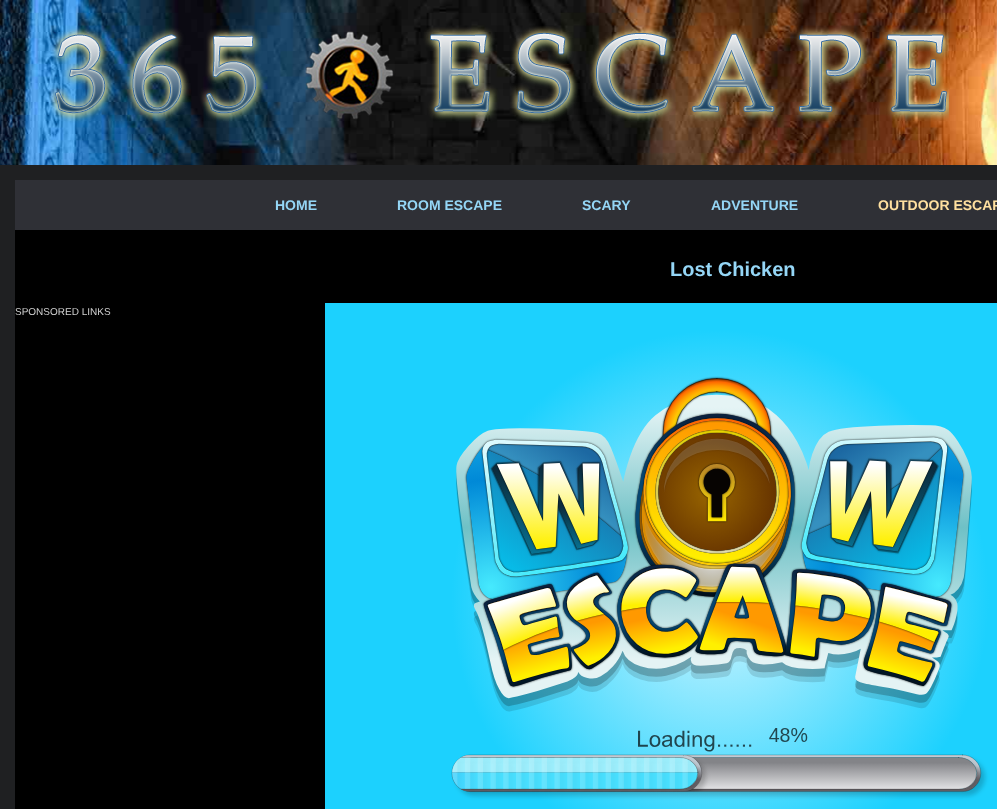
<!DOCTYPE html>
<meta charset="utf-8">
<style>body { margin: 0 } canvas { display: block }</style>
<canvas id="canvas" width="997" height="809"></canvas>
<script type="module">
  const canvas = document.getElementById("canvas");
  const g = canvas.getContext("2d");
  g.miterLimit = 4;
  g.fontKerning = "normal";
  function drawText(s, x, y, [font, color]) {
    g.font = font;
    g.fillStyle = color;
    g.fillText(s, x, y);
  }
  function fillBox(x, y, w, h, color) {
    g.fillStyle = color;
    g.fillRect(x, y, w, h);
  }
  async function drawPicture(src, x, y, w, h) {
    const img = new Image();
    img.src = src;
    await img.decode();
    g.drawImage(img, x, y, w, h);
  }

  const s1 = ["bold 14px Liberation Sans", "#95D6F6"];
  const s2 = ["bold 14px Liberation Sans", "#FFE0A0"];
  const s3 = ["bold 20px Liberation Sans", "#95D6F6"];
  const s4 = ["10px Liberation Sans", "#D1D1D1"];

  fillBox(0, 0, 997, 809, "#FFFFFF");
  await drawPicture("pic1.png", 0, 0, 997, 165);
  await drawPicture("pic2.png", 49, 26, 900, 97);
  fillBox(15, 230, 982, 579, "#000000");
  g.strokeStyle = "#1F2022";
  g.lineWidth = 15;
  g.strokeRect(7.5, 172.5, 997, 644);
  fillBox(15, 180, 982, 50, "#2F3036");
  drawText("HOME", 275, 210, s1);
  drawText("ROOM ESCAPE", 397, 210, s1);
  drawText("SCARY", 582, 210, s1);
  drawText("ADVENTURE", 711, 210, s1);
  drawText("OUTDOOR ESCAP", 878, 210, s2);
  drawText("Lost Chicken", 670, 276, s3);
  drawText("SPONSORED LINKS", 15, 315, s4);
  await drawPicture("pic3.png", 325, 303, 672, 506);
</script>
